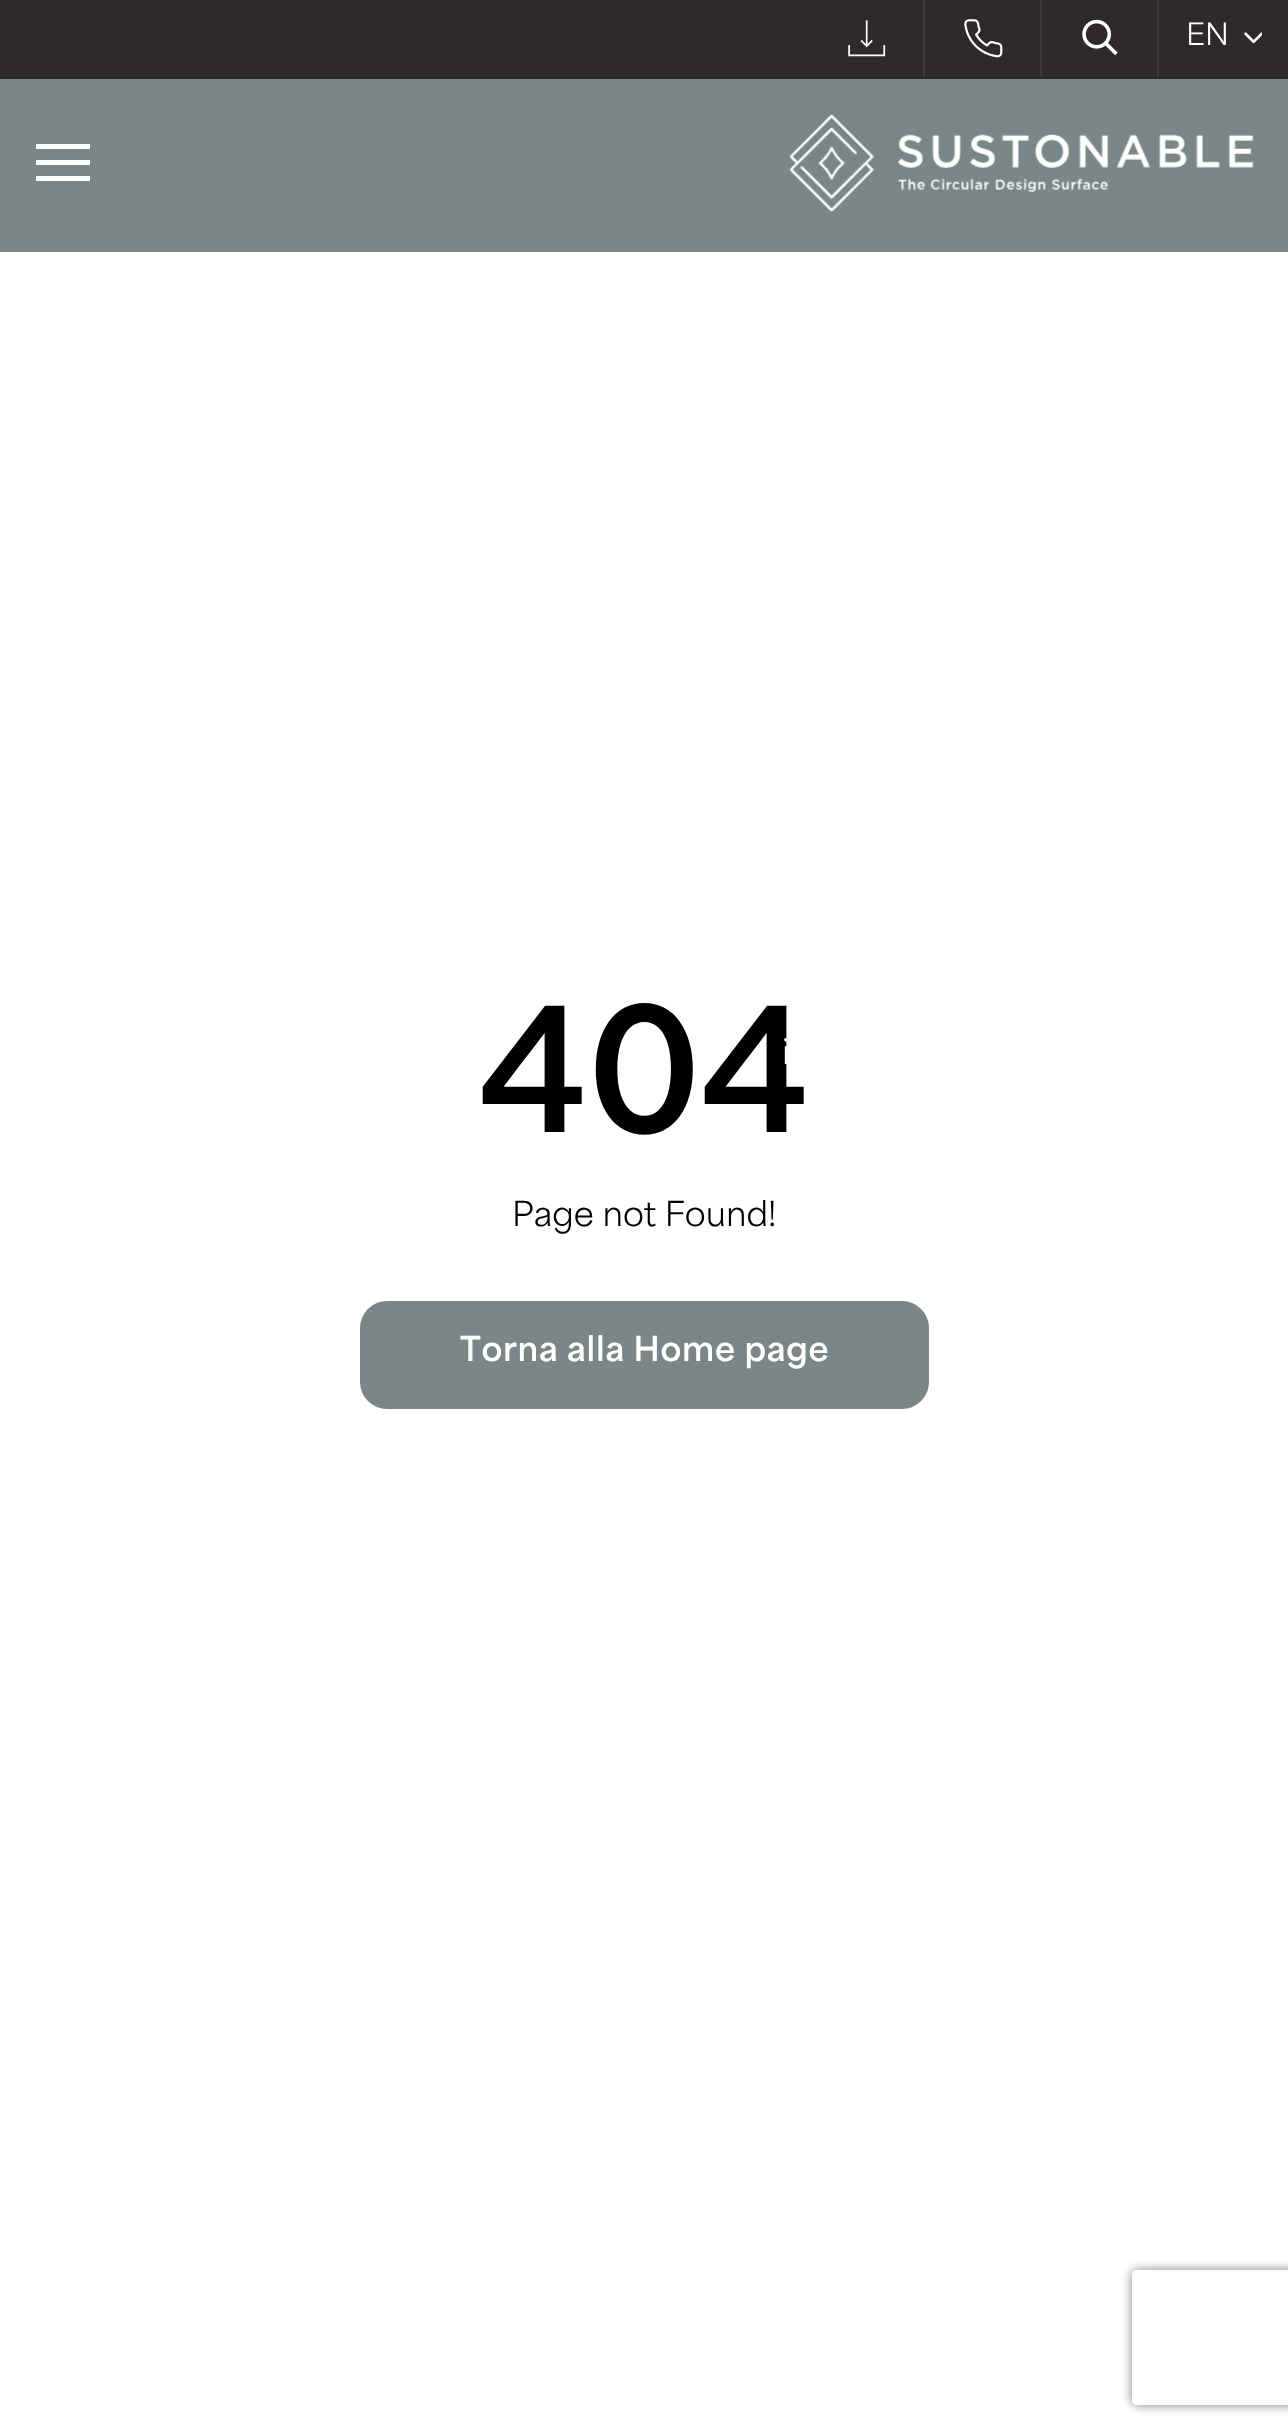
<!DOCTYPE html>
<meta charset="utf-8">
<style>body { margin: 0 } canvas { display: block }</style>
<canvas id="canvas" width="1288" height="2435"></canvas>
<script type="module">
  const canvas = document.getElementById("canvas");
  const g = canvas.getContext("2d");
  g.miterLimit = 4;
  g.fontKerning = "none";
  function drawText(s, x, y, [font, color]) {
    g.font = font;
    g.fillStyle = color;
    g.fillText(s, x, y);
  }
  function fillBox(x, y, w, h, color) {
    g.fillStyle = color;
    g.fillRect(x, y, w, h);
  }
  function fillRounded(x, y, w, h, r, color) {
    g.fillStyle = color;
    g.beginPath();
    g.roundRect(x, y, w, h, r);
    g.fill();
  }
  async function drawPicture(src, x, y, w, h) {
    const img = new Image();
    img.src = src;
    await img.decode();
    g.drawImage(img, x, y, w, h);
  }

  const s1 = ["29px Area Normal", "#FFFFFF"];
  const s2 = ["bold 162px Area Normal", "#000000"];
  const s3 = ["32.4px Area Normal", "#000000"];
  const s4 = ["bold 32.4px Area Normal", "#FFFFFF"];
  const s5 = ["32.4px Area Normal", "#FFFFFF"];

  fillBox(0, 0, 1288, 2435, "#FFFFFF");
  fillBox(0, 79, 1288, 173, "#7B8687");
  fillBox(0, 0, 1288, 79, "#2D2A29");
  fillBox(923, 0, 2, 77, "#3B3B3B");
  await drawPicture("pic1.png", 848, 20, 38, 37);
  fillBox(1040, 0, 2, 77, "#3B3B3B");
  await drawPicture("pic2.png", 964, 19, 39, 39);
  fillBox(1157, 0, 2, 77, "#3B3B3B");
  await drawPicture("pic3.png", 1082, 19, 36, 37);
  await drawPicture("pic4.png", 1244, 32, 18, 12);
  drawText("EN", 1186, 45, s1);
  g.beginPath();
  g.moveTo(36, 144);
  g.lineTo(90, 144);
  g.lineTo(90, 149);
  g.lineTo(36, 149);
  g.closePath();
  g.moveTo(36, 160);
  g.lineTo(90, 160);
  g.lineTo(90, 165);
  g.lineTo(36, 165);
  g.closePath();
  g.moveTo(36, 176);
  g.lineTo(90, 176);
  g.lineTo(90, 181);
  g.lineTo(36, 181);
  g.closePath();
  g.fill();
  await drawPicture("pic5.png", 789, 114, 465, 98);
  drawText("404", 479, 1132, s2);
  drawText("Page not Found!", 512, 1226, s3);
  fillRounded(360, 1301, 569, 108, 27, "#7B8687");
  g.letterSpacing = "0.7px";
  drawText("Torna alla Home page", 460, 1361, s4);
  g.letterSpacing = "0px";
  drawText("i", 782, 1064, s5);
  g.save();
  g.beginPath();
  g.moveTo(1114, 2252);
  g.lineTo(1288, 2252);
  g.lineTo(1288, 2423);
  g.lineTo(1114, 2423);
  g.closePath();
  g.moveTo(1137, 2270);
  g.lineTo(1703, 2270);
  g.bezierCurveTo(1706, 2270, 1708, 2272, 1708, 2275);
  g.lineTo(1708, 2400);
  g.bezierCurveTo(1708, 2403, 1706, 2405, 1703, 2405);
  g.lineTo(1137, 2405);
  g.bezierCurveTo(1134, 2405, 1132, 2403, 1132, 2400);
  g.lineTo(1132, 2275);
  g.bezierCurveTo(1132, 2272, 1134, 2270, 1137, 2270);
  g.closePath();
  g.clip("evenodd");
  g.fillStyle = "#808080";
  g.filter = "blur(5.5px)";
  g.beginPath();
  g.roundRect(1132, 2270, 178, 135, 5);
  g.fill();
  g.filter = "none";
  g.restore();
</script>
